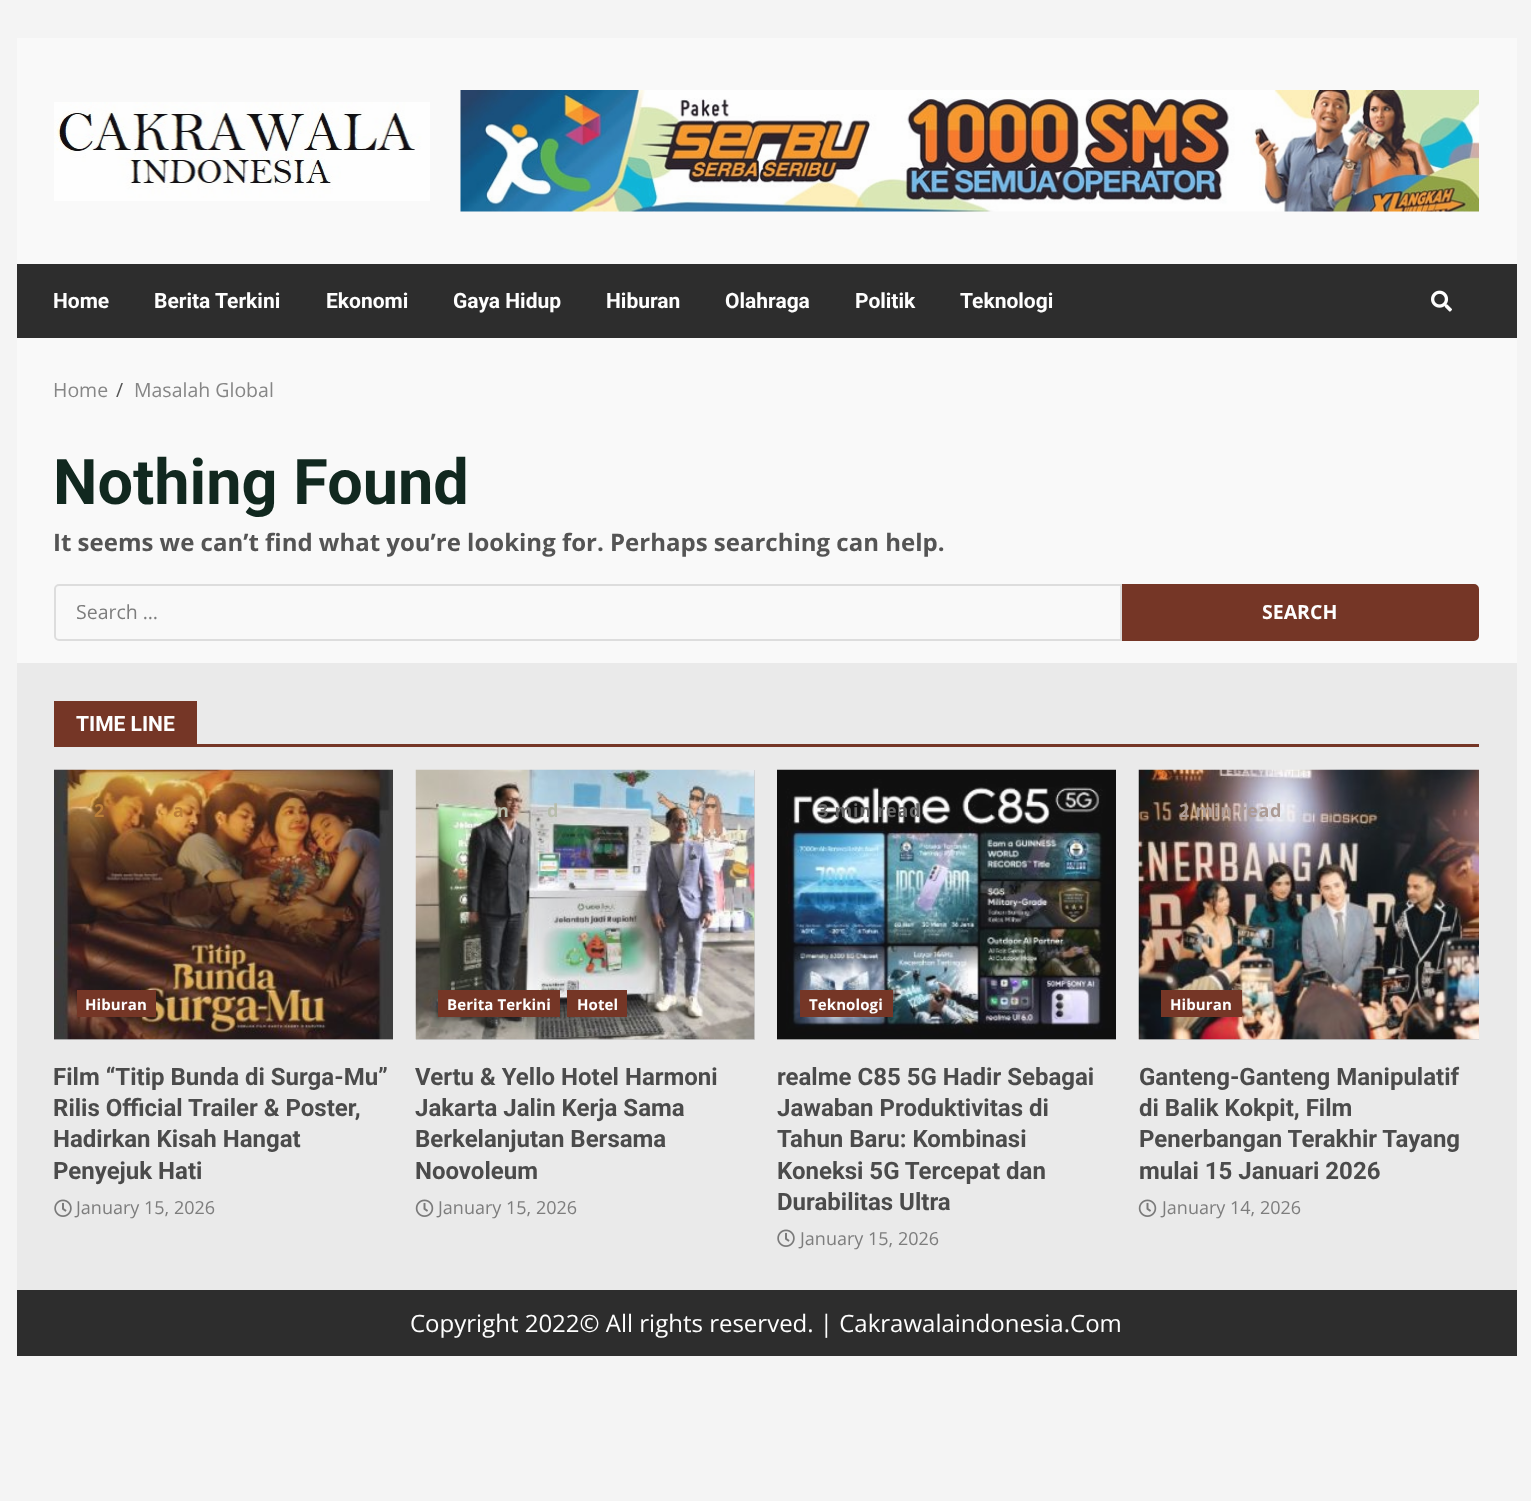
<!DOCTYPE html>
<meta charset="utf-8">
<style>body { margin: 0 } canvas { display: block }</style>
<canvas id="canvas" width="1531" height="1501"></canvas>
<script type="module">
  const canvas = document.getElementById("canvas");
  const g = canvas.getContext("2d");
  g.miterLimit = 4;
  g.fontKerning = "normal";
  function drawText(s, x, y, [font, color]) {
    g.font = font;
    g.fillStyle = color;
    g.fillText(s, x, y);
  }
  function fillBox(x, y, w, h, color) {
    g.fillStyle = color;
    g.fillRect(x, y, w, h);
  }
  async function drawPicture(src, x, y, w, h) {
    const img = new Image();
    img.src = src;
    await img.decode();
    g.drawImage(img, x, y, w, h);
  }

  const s1 = ["bold 21px Roboto", "#FEFEFE"];
  const s2 = ["19.5px Open Sans", "#868686"];
  const s3 = ["19.5px Open Sans", "#545454"];
  const s4 = ["bold 63px Roboto", "#11281F"];
  const s5 = ["bold 24px Open Sans", "#545454"];
  const s6 = ["19.5px Open Sans", "#7D7D7D"];
  const s7 = ["bold 19.5px Open Sans", "#FEFEFE"];
  const s8 = ["bold 18px Open Sans", "#BC7F39"];
  const s9 = ["bold 15px Open Sans", "#FEFEFE"];
  const s10 = ["bold 24px Roboto", "#4B4B4B"];
  const s11 = ["18px Open Sans", "#7D7D7D"];
  const s12 = ["bold 18px Open Sans", "#B7BDAC"];
  const s13 = ["bold 18px Open Sans", "#666666"];
  const s14 = ["bold 18px Open Sans", "#AC9B95"];
  const s15 = ["24px Open Sans", "#FEFEFE"];

  fillBox(0, 0, 1531, 1501, "#F4F4F4");
  fillBox(17, 38, 1500, 625, "#F9F9F9");
  await drawPicture("pic1.png", 54, 102, 376, 99);
  await drawPicture("pic2.png", 460, 90, 1019, 122);
  fillBox(17, 264, 1500, 74, "#2D2D2D");
  drawText("Home", 53, 308, s1);
  drawText("Berita Terkini", 154, 308, s1);
  drawText("Ekonomi", 326, 308, s1);
  drawText("Gaya Hidup", 453, 308, s1);
  drawText("Hiburan", 606, 308, s1);
  drawText("Olahraga", 725, 308, s1);
  drawText("Politik", 855, 308, s1);
  drawText("Teknologi", 960, 308, s1);
  await drawPicture("pic3.png", 1431, 290, 21, 22);
  drawText("Home", 53, 397, s2);
  drawText("/", 116, 397, s3);
  drawText("Masalah Global", 134, 397, s2);
  drawText("Nothing Found", 53, 504, s4);
  drawText("It seems we can’t find what you’re looking for. Perhaps searching can help.", 53, 551, s5);
  g.beginPath();
  g.roundRect(55, 585, 1066, 55, [4, 0, 0, 4]);
  g.strokeStyle = "#DDDDDD";
  g.lineWidth = 2;
  g.stroke();
  drawText("Search …", 76, 619, s6);
  g.fillStyle = "#753626";
  g.beginPath();
  g.roundRect(1123, 585, 355, 55, [0, 4, 4, 0]);
  g.fill();
  g.strokeStyle = "#753626";
  g.stroke();
  drawText("SEARCH", 1262, 619, s7);
  fillBox(17, 663, 1500, 627, "#EAEAEA");
  fillBox(54, 744, 1425, 3, "#753626");
  fillBox(54, 701, 143, 43, "#753626");
  drawText("TIME LINE", 76, 731, s1);
  fillBox(54, 1039, 339, 1, "#CECECE");
  await drawPicture("pic4.png", 54, 769, 339, 271);
  g.letterSpacing = "0.75px";
  drawText("2", 94, 817, s8);
  drawText("a", 173, 817, s8);
  fillBox(77, 990, 79, 27, "#753626");
  g.letterSpacing = "0.1px";
  drawText("Hiburan", 85, 1010, s9);
  g.letterSpacing = "0px";
  drawText("Film “Titip Bunda di Surga-Mu”", 53, 1085, s10);
  drawText("Rilis Official Trailer & Poster,", 53, 1116, s10);
  drawText("Hadirkan Kisah Hangat", 53, 1147, s10);
  drawText("Penyejuk Hati", 53, 1179, s10);
  await drawPicture("pic5.png", 54, 1199, 18, 18);
  drawText("January 15, 2026", 76, 1214, s11);
  fillBox(416, 770, 339, 270, "#CECECE");
  await drawPicture("pic6.png", 415, 769, 340, 271);
  g.letterSpacing = "0.75px";
  drawText("n", 497, 817, s12);
  drawText("d", 547, 817, s12);
  fillBox(438, 990, 122, 27, "#753626");
  g.letterSpacing = "0.1px";
  drawText("Berita Terkini", 447, 1010, s9);
  fillBox(567, 990, 60, 27, "#753626");
  drawText("Hotel", 577, 1010, s9);
  g.letterSpacing = "0px";
  drawText("Vertu & Yello Hotel Harmoni", 415, 1085, s10);
  drawText("Jakarta Jalin Kerja Sama", 415, 1116, s10);
  drawText("Berkelanjutan Bersama", 415, 1147, s10);
  drawText("Noovoleum", 415, 1179, s10);
  await drawPicture("pic7.png", 415, 1199, 19, 18);
  drawText("January 15, 2026", 438, 1214, s11);
  fillBox(777, 1039, 339, 1, "#CECECE");
  await drawPicture("pic8.png", 777, 769, 339, 271);
  g.letterSpacing = "0.75px";
  drawText("3 min read", 818, 817, s13);
  fillBox(800, 990, 93, 27, "#753626");
  g.letterSpacing = "0.1px";
  drawText("Teknologi", 809, 1010, s9);
  g.letterSpacing = "0px";
  drawText("realme C85 5G Hadir Sebagai", 777, 1085, s10);
  drawText("Jawaban Produktivitas di", 777, 1116, s10);
  drawText("Tahun Baru: Kombinasi", 777, 1147, s10);
  drawText("Koneksi 5G Tercepat dan", 777, 1179, s10);
  drawText("Durabilitas Ultra", 777, 1210, s10);
  await drawPicture("pic5.png", 777, 1229, 18, 18);
  drawText("January 15, 2026", 800, 1245, s11);
  fillBox(1139, 1039, 340, 1, "#CECECE");
  await drawPicture("pic9.png", 1138, 769, 341, 271);
  g.letterSpacing = "0.75px";
  drawText("2 min read", 1179, 817, s14);
  fillBox(1161, 990, 81, 27, "#753626");
  g.letterSpacing = "0.1px";
  drawText("Hiburan", 1170, 1010, s9);
  g.letterSpacing = "0px";
  drawText("Ganteng-Ganteng Manipulatif", 1139, 1085, s10);
  drawText("di Balik Kokpit, Film", 1139, 1116, s10);
  drawText("Penerbangan Terakhir Tayang", 1139, 1147, s10);
  drawText("mulai 15 Januari 2026", 1139, 1179, s10);
  await drawPicture("pic7.png", 1138, 1199, 19, 18);
  drawText("January 14, 2026", 1162, 1214, s11);
  fillBox(17, 1290, 1500, 66, "#2D2D2D");
  drawText("Copyright 2022© All rights reserved. | Cakrawalaindonesia.Com", 410, 1332, s15);
</script>
